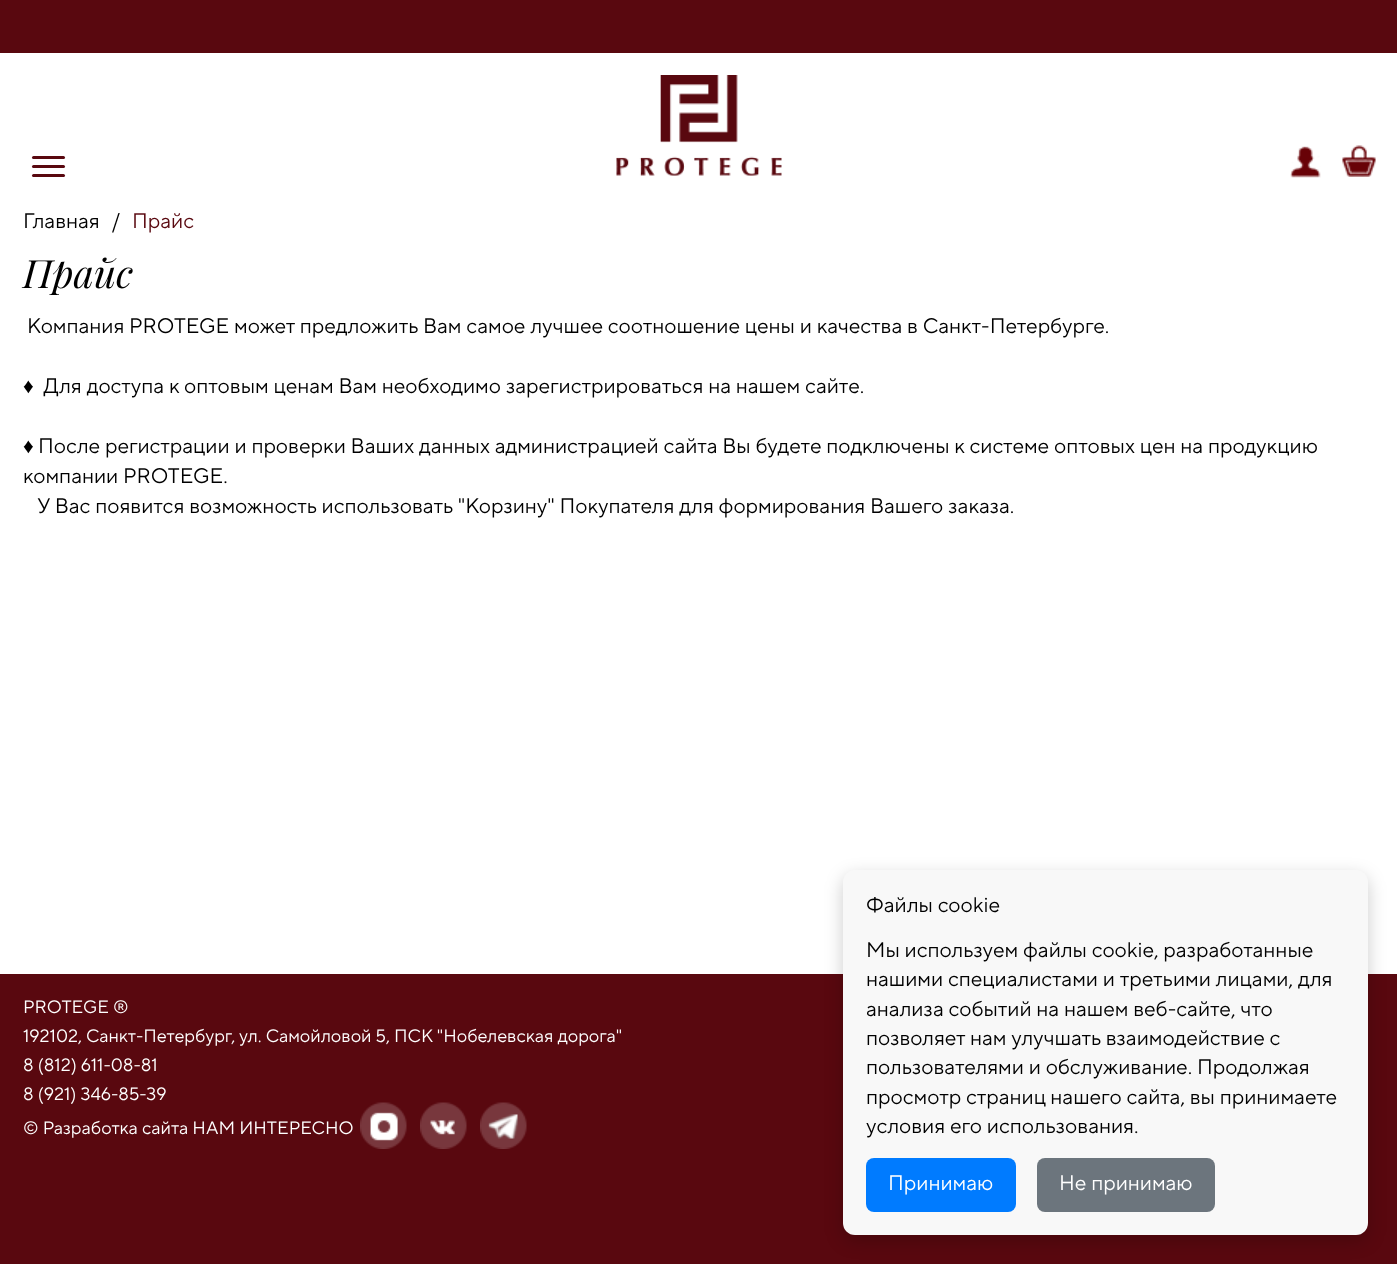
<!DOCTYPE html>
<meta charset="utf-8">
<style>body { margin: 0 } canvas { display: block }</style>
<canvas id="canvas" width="1397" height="1264"></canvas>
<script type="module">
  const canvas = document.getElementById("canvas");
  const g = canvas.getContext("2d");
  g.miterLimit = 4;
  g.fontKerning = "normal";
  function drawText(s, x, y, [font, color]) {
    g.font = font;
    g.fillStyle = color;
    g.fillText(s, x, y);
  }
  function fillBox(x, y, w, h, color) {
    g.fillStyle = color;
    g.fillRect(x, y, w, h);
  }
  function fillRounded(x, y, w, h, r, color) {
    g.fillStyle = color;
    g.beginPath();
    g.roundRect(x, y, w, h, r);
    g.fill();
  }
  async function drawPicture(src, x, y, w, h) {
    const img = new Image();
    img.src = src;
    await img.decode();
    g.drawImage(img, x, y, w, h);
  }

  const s1 = ["21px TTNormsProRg", "#000000"];
  const s2 = ["21px TTNormsProRg", "#59080F"];
  const s3 = ["italic 39px Playfair Display", "#000000"];
  const s4 = ["21px Liberation Serif", "#000000"];
  const s5 = ["18px TTNormsProRg", "#FFFFFF"];
  const s6 = ["21px TTNormsProRg", "#FFFFFF"];

  fillBox(0, 0, 1397, 1264, "#FFFFFF");
  fillBox(0, 0, 1397, 53, "#59080F");
  fillRounded(32, 156, 33, 3, 1.5, "#59080F");
  fillRounded(32, 165, 33, 3, 1.5, "#59080F");
  fillRounded(32, 174, 33, 3, 1.5, "#59080F");
  await drawPicture("pic1.png", 616, 75, 166, 101);
  await drawPicture("pic2.png", 1290, 146, 31, 32);
  await drawPicture("pic3.png", 1342, 145, 34, 32);
  drawText("Главная", 23, 228, s1);
  drawText("/", 112, 228, s1);
  drawText("Прайс", 132, 228, s2);
  drawText("Прайс", 23, 288, s3);
  drawText("Компания PROTEGE может предложить Вам самое лучшее соотношение цены и качества в Санкт-Петербурге.", 27, 333, s1);
  drawText("♦", 23, 393, s4);
  drawText("Для доступа к оптовым ценам Вам необходимо зарегистрироваться на нашем сайте.", 43, 393, s1);
  drawText("♦", 23, 453, s4);
  drawText("После регистрации и проверки Ваших данных администрацией сайта Вы будете подключены к системе оптовых цен на продукцию", 38, 453, s1);
  drawText("компании PROTEGE.", 23, 483, s1);
  drawText("У Вас появится возможность использовать \"Корзину\" Покупателя для формирования Вашего заказа.", 37, 513, s1);
  fillBox(0, 974, 1397, 290, "#59080F");
  drawText("PROTEGE ®", 23, 1013, s5);
  drawText("192102, Санкт-Петербург, ул. Самойловой 5, ПСК \"Нобелевская дорога\"", 23, 1042, s5);
  drawText("8 (812) 611-08-81", 23, 1071, s5);
  drawText("8 (921) 346-85-39", 23, 1100, s5);
  drawText("© Разработка сайта НАМ ИНТЕРЕСНО", 23, 1134, s5);
  await drawPicture("pic4.png", 360, 1102, 47, 47);
  await drawPicture("pic5.png", 420, 1102, 47, 47);
  await drawPicture("pic6.png", 480, 1102, 47, 47);
  g.fillStyle = "rgba(0, 0, 0, 0.2)";
  g.filter = "blur(9px)";
  g.beginPath();
  g.roundRect(843, 876, 525, 365, 12);
  g.fill();
  g.filter = "none";
  fillRounded(843, 870, 525, 365, 12, "#F8F8F8");
  drawText("Файлы cookie", 866, 912, s1);
  drawText("Мы используем файлы cookie, разработанные", 866, 957, s1);
  drawText("нашими специалистами и третьими лицами, для", 866, 986, s1);
  drawText("анализа событий на нашем веб-сайте, что", 866, 1016, s1);
  drawText("позволяет нам улучшать взаимодействие с", 866, 1045, s1);
  drawText("пользователями и обслуживание. Продолжая", 866, 1074, s1);
  drawText("просмотр страниц нашего сайта, вы принимаете", 866, 1104, s1);
  drawText("условия его использования.", 866, 1133, s1);
  fillRounded(866, 1158, 150, 54, 8, "#007BFF");
  drawText("Принимаю", 888, 1190, s6);
  fillRounded(1037, 1158, 178, 54, 8, "#6C757D");
  drawText("Не принимаю", 1059, 1190, s6);
</script>
